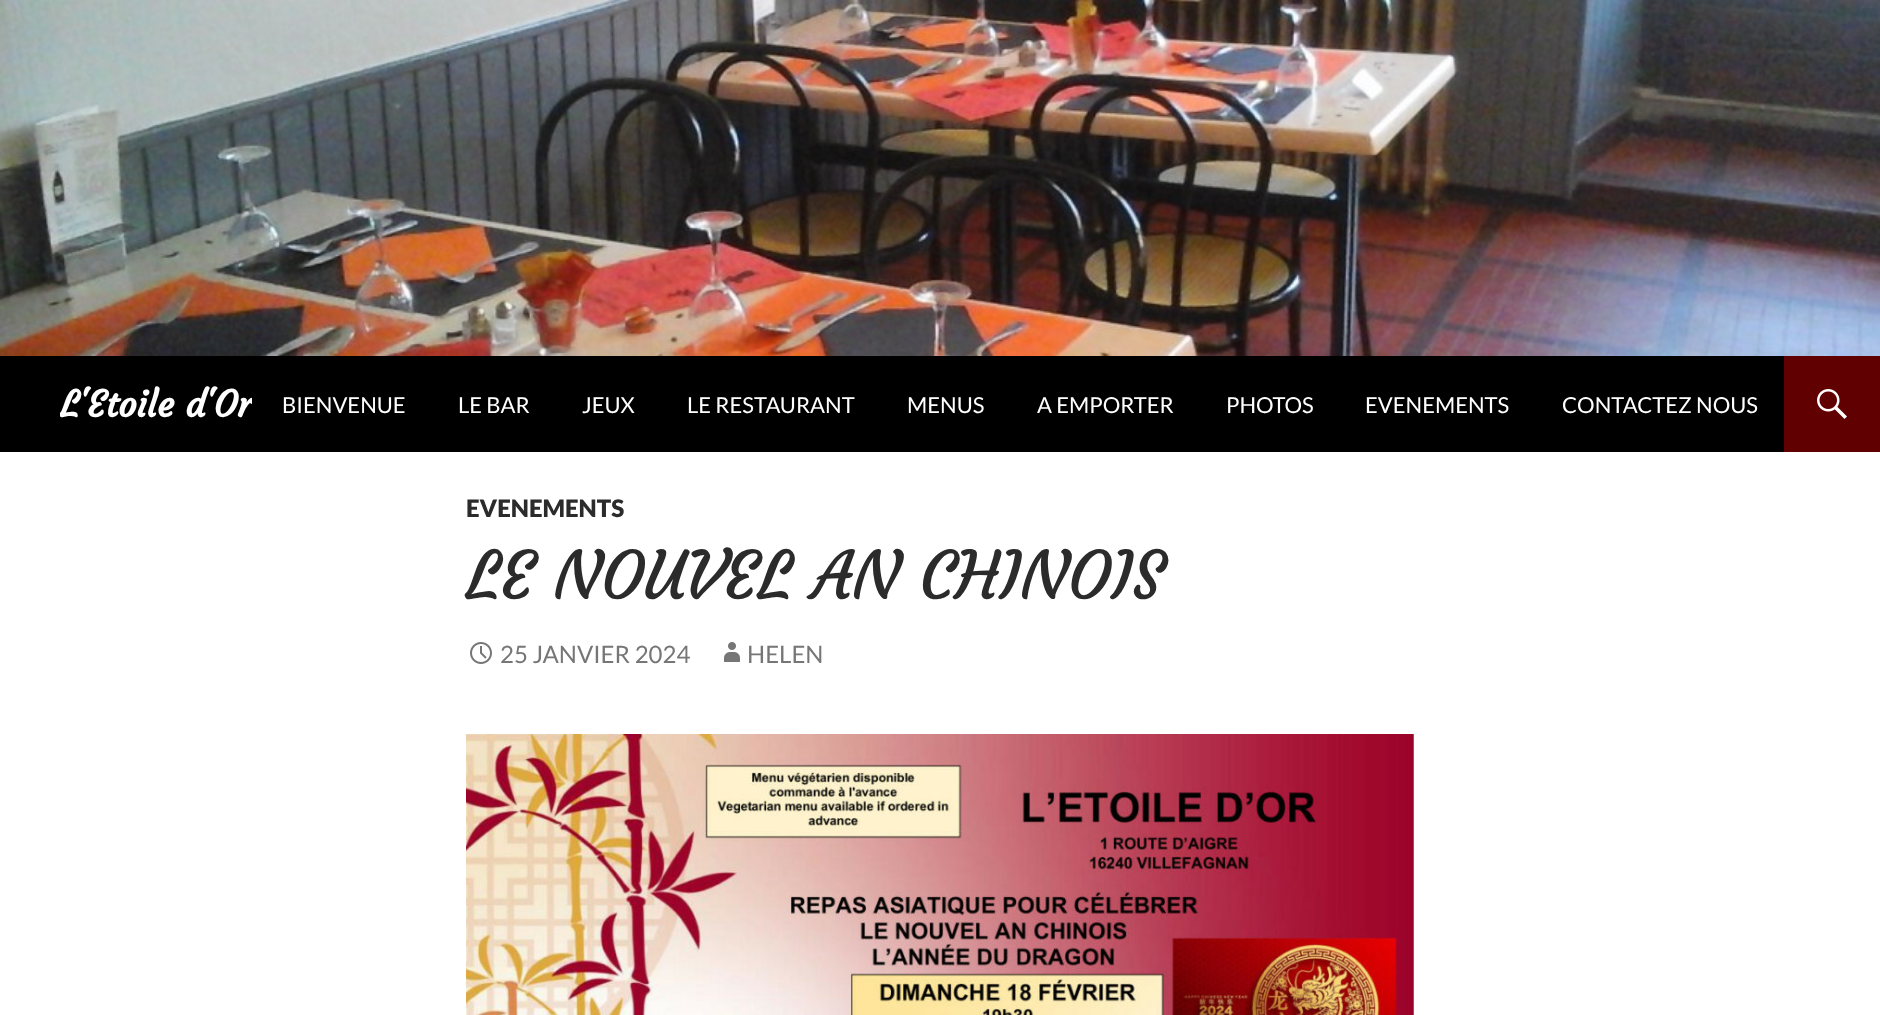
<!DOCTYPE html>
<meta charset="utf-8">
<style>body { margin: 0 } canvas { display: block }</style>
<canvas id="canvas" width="1880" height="1015"></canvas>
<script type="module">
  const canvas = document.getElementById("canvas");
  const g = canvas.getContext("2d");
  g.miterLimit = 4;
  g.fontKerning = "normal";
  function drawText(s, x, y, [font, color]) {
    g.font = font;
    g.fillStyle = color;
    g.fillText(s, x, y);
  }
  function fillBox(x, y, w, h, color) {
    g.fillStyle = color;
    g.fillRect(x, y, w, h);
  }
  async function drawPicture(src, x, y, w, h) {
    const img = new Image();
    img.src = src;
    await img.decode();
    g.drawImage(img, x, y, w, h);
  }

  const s1 = ["bold 36px Courgette", "#FFFFFF"];
  const s2 = ["22px Lato", "#FFFFFF"];
  const s3 = ["900 24px Lato", "#2B2B2B"];
  const s4 = ["66px Courgette", "#2B2B2B"];
  const s5 = ["24px Lato", "#767676"];

  fillBox(0, 0, 1880, 1015, "#FFFFFF");
  await drawPicture("pic1.png", 0, 0, 1880, 356);
  fillBox(0, 356, 1784, 96, "#000000");
  g.save();
  g.beginPath();
  g.rect(60, 356, 192, 96);
  g.clip();
  drawText("L'Etoile d'Or", 60, 417, s1);
  g.restore();
  drawText("BIENVENUE", 282, 413, s2);
  drawText("LE BAR", 458, 413, s2);
  drawText("JEUX", 582, 413, s2);
  drawText("LE RESTAURANT", 687, 413, s2);
  drawText("MENUS", 907, 413, s2);
  drawText("A EMPORTER", 1037, 413, s2);
  drawText("PHOTOS", 1226, 413, s2);
  drawText("EVENEMENTS", 1365, 413, s2);
  drawText("CONTACTEZ NOUS", 1562, 413, s2);
  fillBox(1784, 356, 96, 96, "#600000");
  await drawPicture("pic2.png", 1817, 389, 30, 30);
  drawText("EVENEMENTS", 466, 517, s3);
  drawText("LE NOUVEL AN CHINOIS", 466, 599, s4);
  await drawPicture("pic3.png", 470, 642, 22, 22);
  drawText("25 JANVIER 2024", 500, 663, s5);
  await drawPicture("pic4.png", 724, 642, 16, 20);
  drawText("HELEN", 747, 663, s5);
  await drawPicture("pic5.png", 466, 734, 948, 281);
</script>
